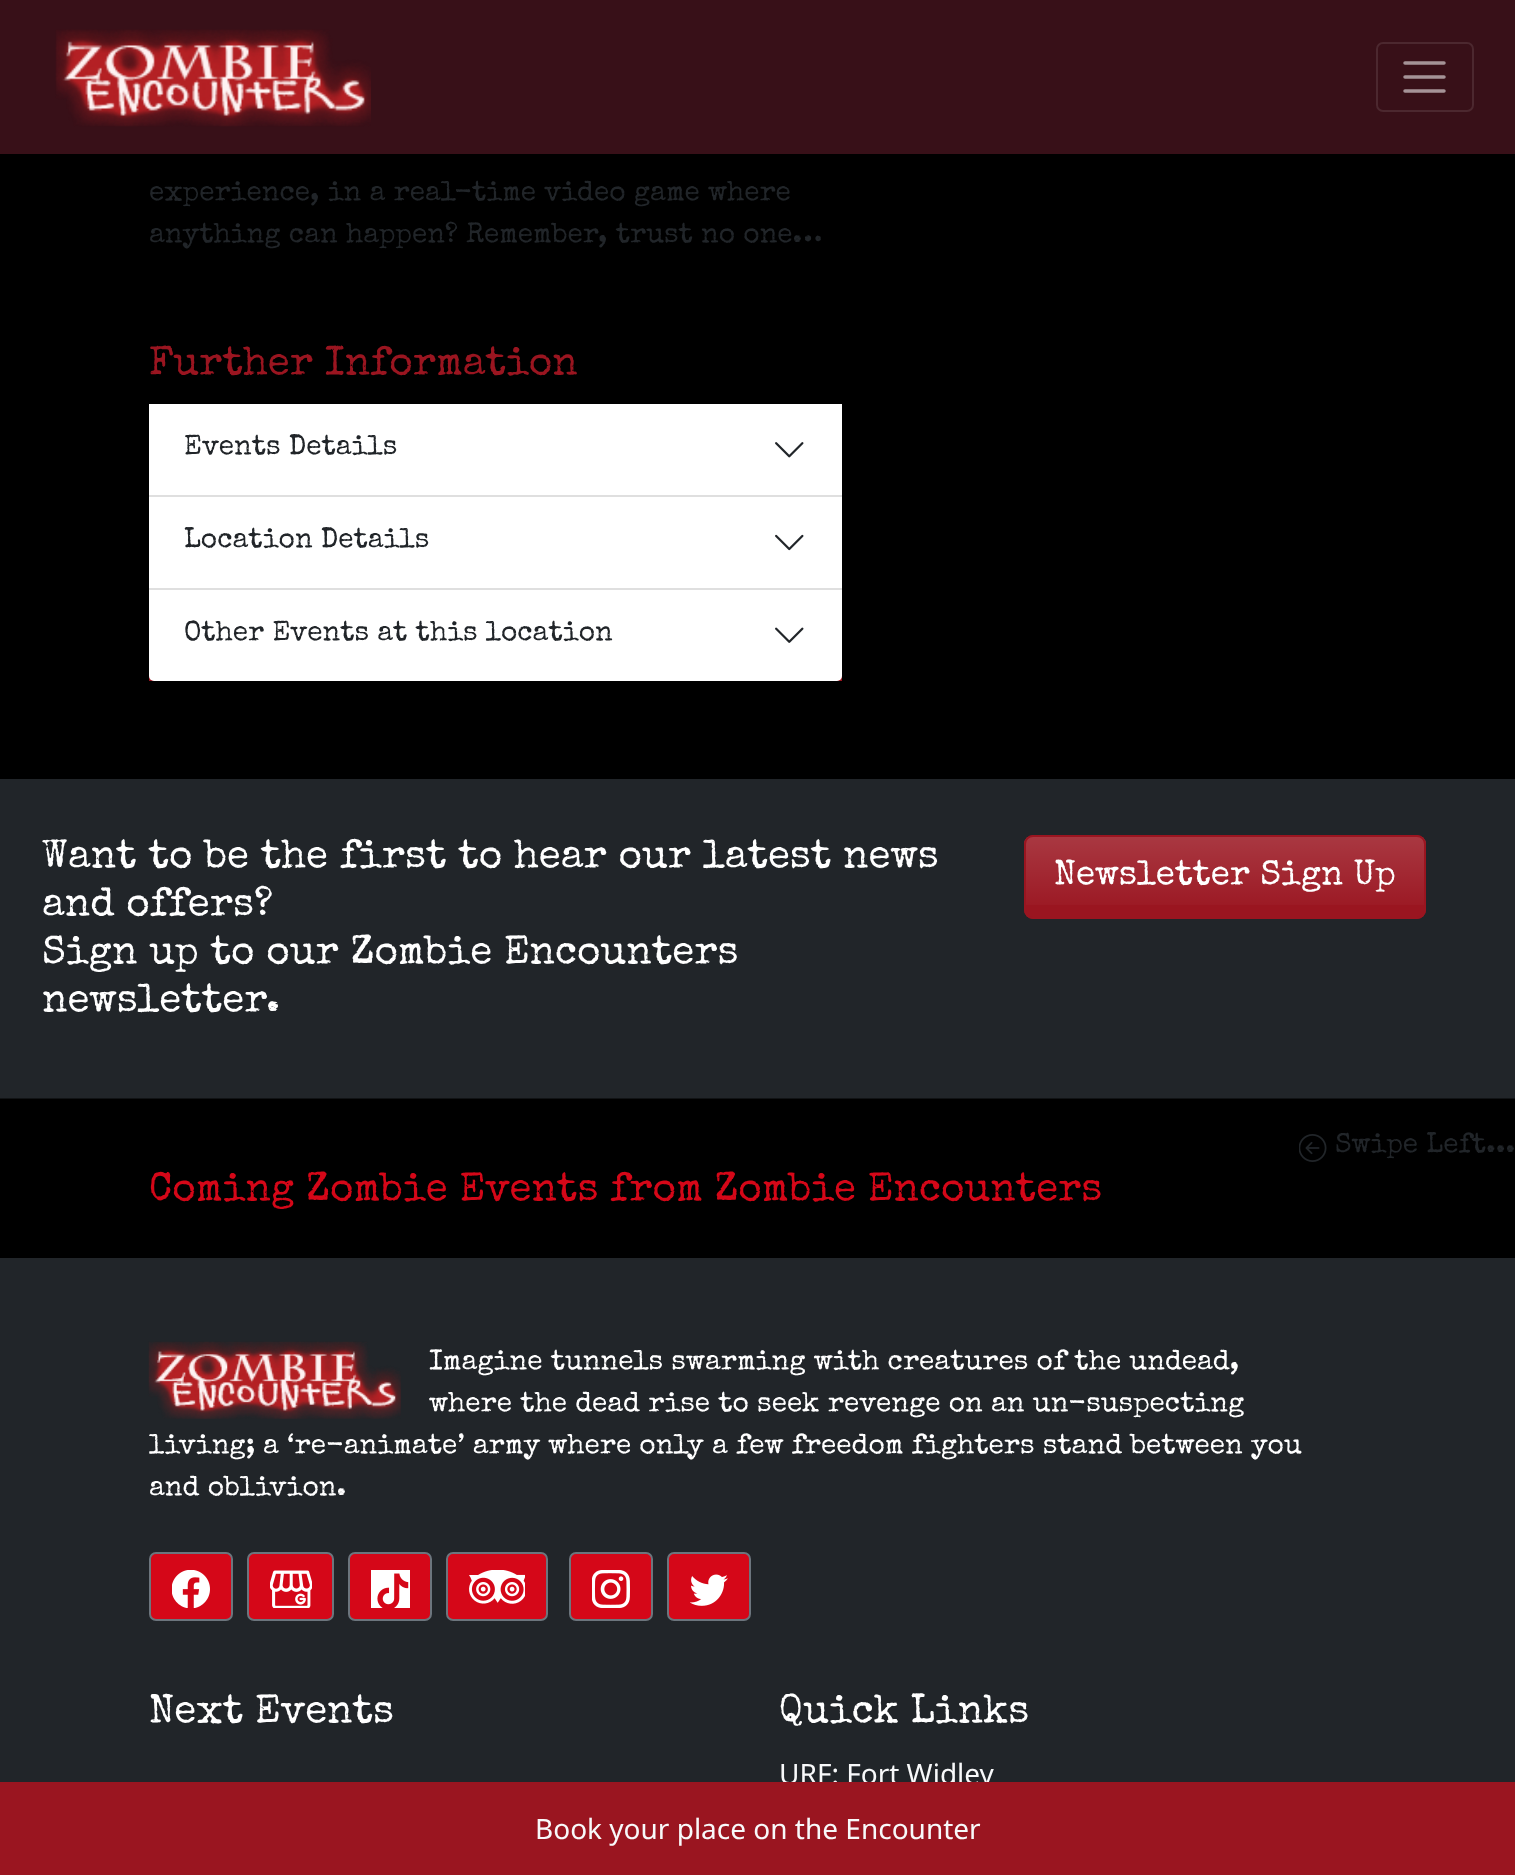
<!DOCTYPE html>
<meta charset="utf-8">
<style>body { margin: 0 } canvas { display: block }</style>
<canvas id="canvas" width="1515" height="1875"></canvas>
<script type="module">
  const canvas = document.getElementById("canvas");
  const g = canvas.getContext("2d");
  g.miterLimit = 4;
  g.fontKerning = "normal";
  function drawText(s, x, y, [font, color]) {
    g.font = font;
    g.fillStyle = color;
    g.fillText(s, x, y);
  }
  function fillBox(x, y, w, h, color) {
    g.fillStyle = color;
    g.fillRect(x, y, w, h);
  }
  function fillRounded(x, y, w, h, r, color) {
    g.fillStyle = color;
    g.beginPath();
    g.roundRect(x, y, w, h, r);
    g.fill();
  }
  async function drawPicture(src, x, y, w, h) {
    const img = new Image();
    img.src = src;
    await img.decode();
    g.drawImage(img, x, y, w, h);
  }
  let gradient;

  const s1 = ["28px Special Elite", "#212529"];
  const s2 = ["40.25px Special Elite", "#9A1520"];
  const s3 = ["28px Noto Sans", "#F8F9FA"];
  const s4 = ["40.25px Special Elite", "#FFFFFF"];
  const s5 = ["35px Special Elite", "#FFFFFF"];
  const s6 = ["40.25px Special Elite", "#D50718"];
  const s7 = ["28px Special Elite", "#FFFFFF"];

  fillBox(0, 0, 1515, 1875, "#000000");
  fillBox(0, 0, 1515, 154, "rgba(70, 20, 30, 0.8)");
  await drawPicture("pic1.png", 55, 29, 316, 98);
  g.beginPath();
  g.roundRect(1377, 43, 96, 68, 6);
  g.strokeStyle = "#4C282F";
  g.lineWidth = 2;
  g.stroke();
  g.beginPath();
  g.moveTo(1405, 63);
  g.lineTo(1444, 63);
  g.moveTo(1405, 77);
  g.lineTo(1444, 77);
  g.moveTo(1405, 91);
  g.lineTo(1444, 91);
  g.strokeStyle = "#A59397";
  g.lineWidth = 3.5;
  g.lineCap = "round";
  g.stroke();
  drawText("experience, in a real-time video game where", 149, 200, s1);
  drawText("anything can happen? Remember, trust no one…", 149, 242, s1);
  drawText("Further Information", 149, 374, s2);
  fillBox(149, 404, 693, 91, "#FFFFFF");
  fillBox(149, 495, 693, 2, "#DFDFDF");
  drawText("Events Details", 184, 454, s1);
  await drawPicture("pic2.png", 775, 442, 29, 16);
  fillBox(149, 497, 693, 91, "#FFFFFF");
  fillBox(149, 588, 693, 2, "#DFDFDF");
  drawText("Location Details", 184, 547, s1);
  await drawPicture("pic3.png", 775, 534, 29, 17);
  fillBox(149, 676, 693, 5, "#9A1520");
  g.fillStyle = "#FFFFFF";
  g.beginPath();
  g.roundRect(149, 590, 693, 91, [0, 0, 5, 5]);
  g.fill();
  drawText("Other Events at this location", 184, 640, s1);
  await drawPicture("pic4.png", 775, 627, 29, 16);
  fillBox(0, 1258, 1515, 524, "#212529");
  drawText("URF: Fort Widley", 779, 1784, s3);
  fillBox(0, 1782, 1515, 93, "#9A1520");
  drawText("Book your place on the Encounter", 535, 1839, s3);
  fillBox(0, 779, 1515, 319, "#212529");
  drawText("Want to be the first to hear our latest news", 42, 867, s4);
  drawText("and offers?", 42, 915, s4);
  drawText("Sign up to our Zombie Encounters", 42, 963, s4);
  drawText("newsletter.", 42, 1011, s4);
  fillRounded(1024, 835, 402, 84, 9, "#9A1520");
  g.save();
  g.beginPath();
  g.roundRect(1024, 835, 402, 84, 9);
  g.clip();
  gradient = g.createLinearGradient(1225, 837, 1225, 917);
  gradient.addColorStop(0, "rgba(255, 255, 255, 0.15)");
  gradient.addColorStop(1, "rgba(255, 255, 255, 0)");
  g.fillStyle = gradient;
  g.fillRect(1024, 837, 402, 68);
  g.restore();
  g.beginPath();
  g.roundRect(1025, 836, 400, 82, 8);
  g.strokeStyle = "#9A1520";
  g.lineWidth = 2;
  g.stroke();
  drawText("Newsletter Sign Up", 1054, 884, s5);
  fillBox(0, 1098, 1515, 1, "#111315");
  await drawPicture("pic5.png", 1299, 1134, 28, 28);
  drawText("Swipe Left...", 1335, 1152, s1);
  drawText("Coming Zombie Events from Zombie Encounters", 149, 1200, s6);
  await drawPicture("pic6.png", 148, 1341, 253, 78);
  drawText("Imagine tunnels swarming with creatures of the undead,", 429, 1369, s7);
  drawText("where the dead rise to seek revenge on an un-suspecting", 429, 1411, s7);
  drawText("living; a ‘re-animate’ army where only a few freedom fighters stand between you", 149, 1453, s7);
  drawText("and oblivion.", 149, 1495, s7);
  g.fillStyle = "#D50718";
  g.beginPath();
  g.roundRect(150, 1553, 82, 67, 6);
  g.fill();
  g.strokeStyle = "#6C757D";
  g.stroke();
  await drawPicture("pic7.png", 172, 1570, 38, 38);
  g.beginPath();
  g.roundRect(248, 1553, 85, 67, 6);
  g.fill();
  g.stroke();
  await drawPicture("pic8.png", 270, 1570, 42, 38);
  g.beginPath();
  g.roundRect(349, 1553, 82, 67, 6);
  g.fill();
  g.stroke();
  await drawPicture("pic9.png", 371, 1570, 39, 38);
  g.beginPath();
  g.roundRect(447, 1553, 100, 67, 6);
  g.fill();
  g.stroke();
  await drawPicture("pic10.png", 469, 1570, 56, 34);
  g.beginPath();
  g.roundRect(570, 1553, 82, 67, 6);
  g.fill();
  g.stroke();
  await drawPicture("pic11.png", 592, 1570, 38, 38);
  g.beginPath();
  g.roundRect(668, 1553, 82, 67, 6);
  g.fill();
  g.stroke();
  await drawPicture("pic12.png", 690, 1574, 38, 32);
  drawText("Next Events", 149, 1722, s4);
  drawText("Quick Links", 779, 1722, s4);
</script>
